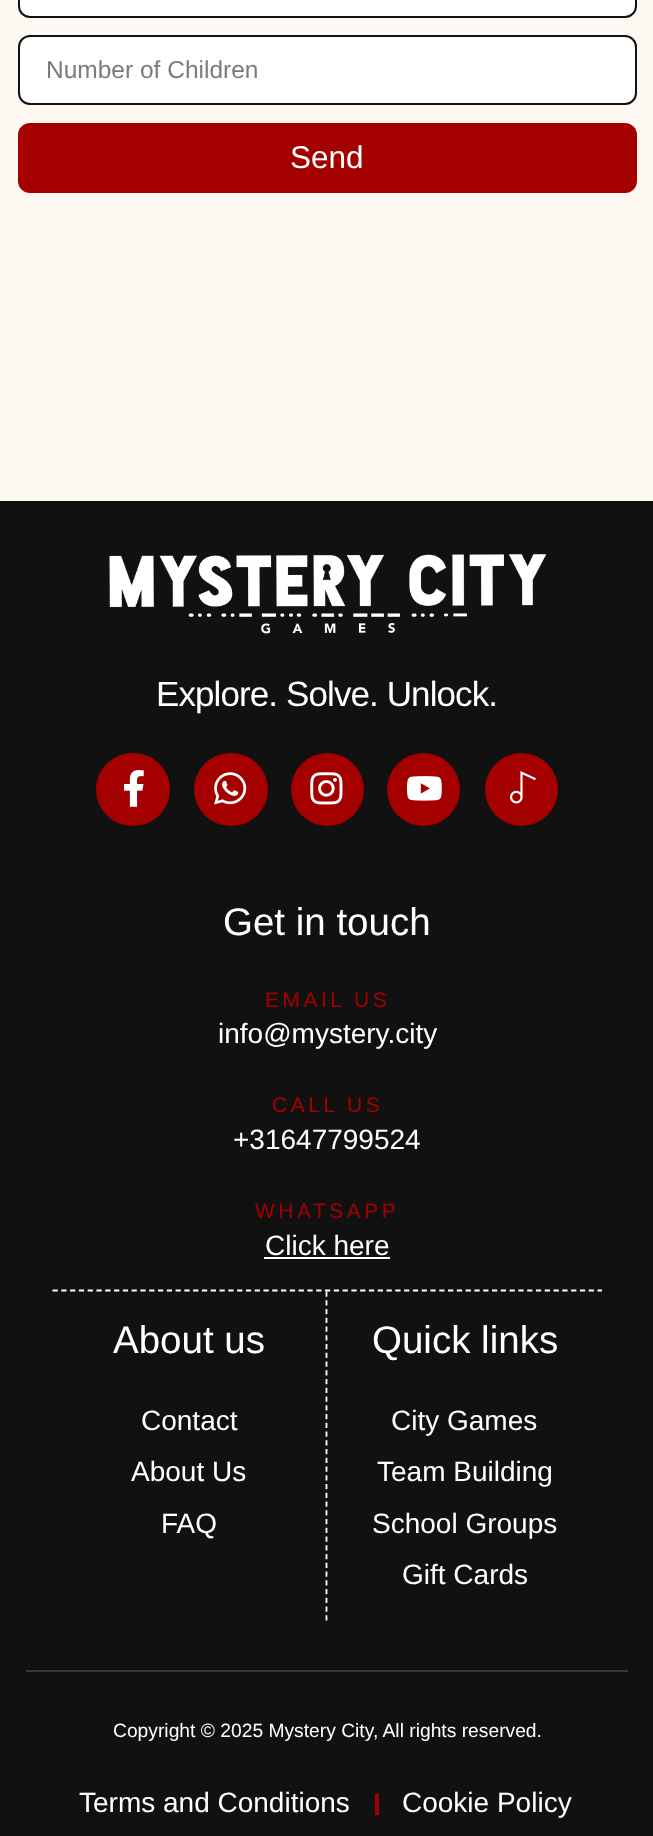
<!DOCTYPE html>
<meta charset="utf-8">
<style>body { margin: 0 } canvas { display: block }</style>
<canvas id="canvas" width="653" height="1836"></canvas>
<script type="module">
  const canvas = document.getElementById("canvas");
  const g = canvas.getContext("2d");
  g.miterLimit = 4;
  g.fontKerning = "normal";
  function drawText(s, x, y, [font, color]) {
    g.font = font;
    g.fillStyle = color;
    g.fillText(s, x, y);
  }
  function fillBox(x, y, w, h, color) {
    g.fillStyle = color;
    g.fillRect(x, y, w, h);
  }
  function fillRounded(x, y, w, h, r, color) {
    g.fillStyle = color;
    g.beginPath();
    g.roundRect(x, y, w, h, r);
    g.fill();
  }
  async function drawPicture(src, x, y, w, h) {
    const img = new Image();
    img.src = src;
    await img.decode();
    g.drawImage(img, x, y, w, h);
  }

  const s1 = ["24.5px Liberation Sans", "#7B7B7B"];
  const s2 = ["31.5px Liberation Sans", "#FFFFFF"];
  const s3 = ["35px Liberation Sans", "#FFFFFF"];
  const s4 = ["38.5px Liberation Sans", "#FFFFFF"];
  const s5 = ["21px Liberation Sans", "#A50000"];
  const s6 = ["28px Liberation Sans", "#FFFFFF"];
  const s7 = ["19.25px Liberation Sans", "#FFFFFF"];

  fillBox(0, 0, 653, 1836, "#FDF9F2");
  g.fillStyle = "#FFFFFF";
  g.beginPath();
  g.roundRect(19, -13, 617, 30, 11);
  g.fill();
  g.strokeStyle = "#111111";
  g.lineWidth = 2;
  g.stroke();
  g.beginPath();
  g.roundRect(19, 36, 617, 68, 11);
  g.fill();
  g.stroke();
  drawText("Number of Children", 46, 78, s1);
  fillRounded(18, 123, 619, 70, 12, "#A50000");
  drawText("Send", 290, 168, s2);
  fillBox(0, 501, 653, 1335, "#111111");
  await drawPicture("pic1.png", 109, 554, 438, 80);
  g.letterSpacing = "-0.9px";
  drawText("Explore. Solve. Unlock.", 156, 706, s3);
  fillRounded(96, 753, 74, 73, 36.5, "#A50000");
  await drawPicture("pic2.png", 124, 770, 20, 37);
  fillRounded(194, 753, 74, 73, 36.5, "#A50000");
  await drawPicture("pic3.png", 214, 772, 33, 33);
  g.beginPath();
  g.arc(327.5, 789.5, 36.5, 0, Math.PI * 2);
  g.fill();
  await drawPicture("pic4.png", 310, 772, 33, 33);
  g.beginPath();
  g.arc(423.5, 789.5, 36.5, 0, Math.PI * 2);
  g.fill();
  await drawPicture("pic5.png", 406, 776, 36, 25);
  g.beginPath();
  g.arc(521.5, 789.5, 36.5, 0, Math.PI * 2);
  g.fill();
  await drawPicture("pic6.png", 510, 771, 26, 33);
  fillBox(26, 1670, 602, 2, "#393939");
  g.beginPath();
  g.moveTo(52.5, 1290.5);
  g.lineTo(602, 1290.5);
  g.strokeStyle = "#FFFFFF";
  g.lineWidth = 1.8;
  g.setLineDash([5.25, 3.54]);
  g.stroke();
  g.letterSpacing = "0px";
  drawText("Get in touch", 223, 935, s4);
  g.letterSpacing = "3.5px";
  drawText("EMAIL US", 265, 1007, s5);
  g.letterSpacing = "0px";
  drawText("info@mystery.city", 218, 1043, s6);
  g.letterSpacing = "3.5px";
  drawText("CALL US", 272, 1112, s5);
  g.letterSpacing = "0px";
  drawText("+31647799524", 233, 1149, s6);
  g.letterSpacing = "3.5px";
  drawText("WHATSAPP", 255, 1218, s5);
  g.letterSpacing = "0px";
  drawText("Click here", 265, 1255, s6);
  fillBox(264, 1257, 126, 2, "#FFFFFF");
  g.beginPath();
  g.moveTo(326.5, 1291.5);
  g.lineTo(326.5, 1620.5);
  g.setLineDash([5.25, 3.5]);
  g.stroke();
  drawText("About us", 113, 1353, s4);
  drawText("Contact", 141, 1430, s6);
  drawText("About Us", 131, 1481, s6);
  drawText("FAQ", 161, 1533, s6);
  drawText("Quick links", 372, 1353, s4);
  drawText("City Games", 391, 1430, s6);
  drawText("Team Building", 377, 1481, s6);
  drawText("School Groups", 372, 1533, s6);
  drawText("Gift Cards", 402, 1584, s6);
  drawText("Copyright © 2025 Mystery City, All rights reserved.", 113, 1737, s7);
  drawText("Terms and Conditions", 79, 1812, s6);
  fillBox(375, 1794, 4, 21, "#A50000");
  drawText("Cookie Policy", 402, 1812, s6);
</script>
